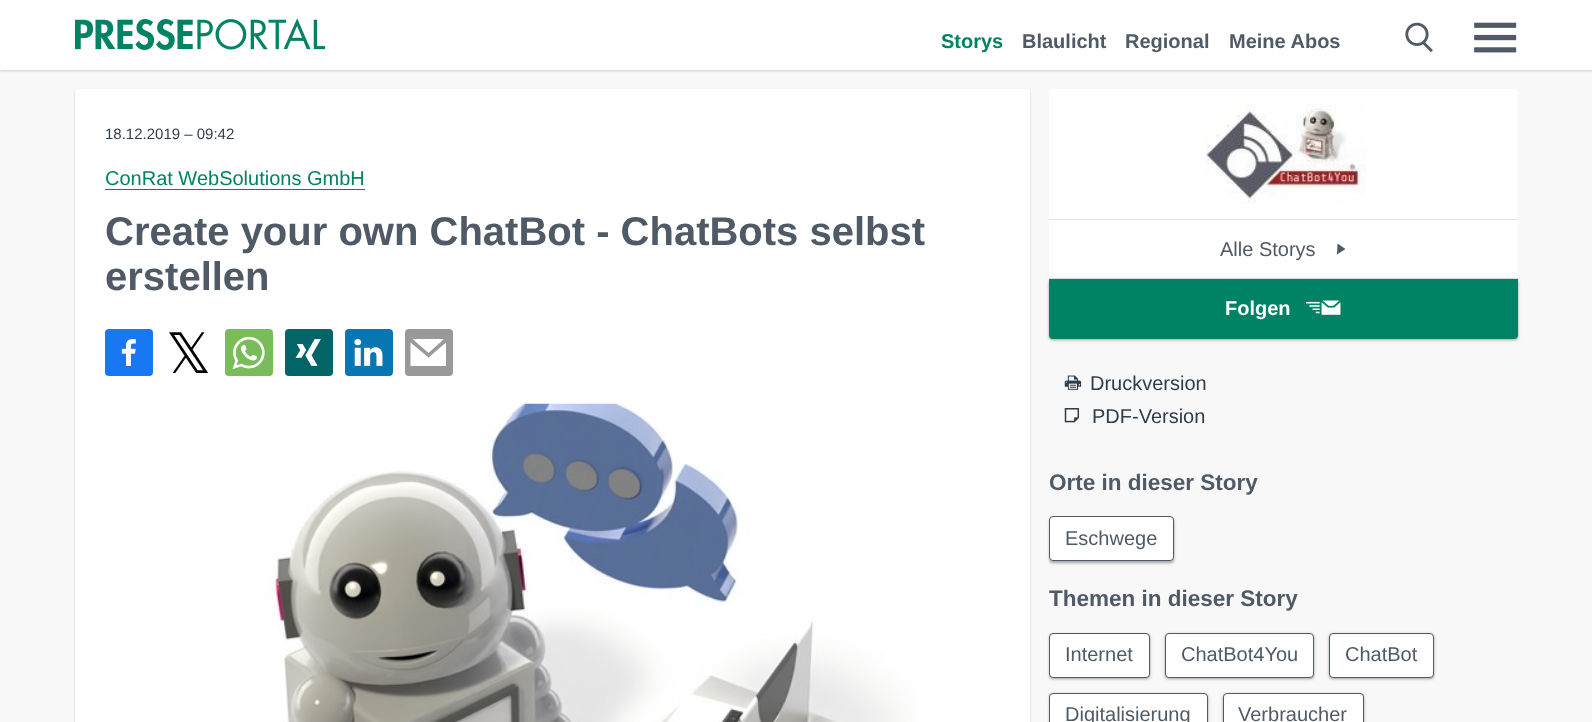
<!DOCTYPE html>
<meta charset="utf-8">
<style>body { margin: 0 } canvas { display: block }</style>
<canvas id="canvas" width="1592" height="722"></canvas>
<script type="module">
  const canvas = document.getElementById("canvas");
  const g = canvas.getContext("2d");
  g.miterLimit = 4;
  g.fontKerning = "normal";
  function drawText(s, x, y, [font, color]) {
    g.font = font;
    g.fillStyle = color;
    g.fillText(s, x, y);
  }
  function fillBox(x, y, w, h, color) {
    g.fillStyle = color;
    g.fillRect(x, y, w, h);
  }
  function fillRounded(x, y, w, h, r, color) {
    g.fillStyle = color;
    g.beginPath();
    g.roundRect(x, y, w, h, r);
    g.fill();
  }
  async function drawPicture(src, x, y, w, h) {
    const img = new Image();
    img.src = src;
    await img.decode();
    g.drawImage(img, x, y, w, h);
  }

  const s1 = ["bold 20px Liberation Sans", "#008264"];
  const s2 = ["bold 20px Liberation Sans", "#4F5A66"];
  const s3 = ["15px Liberation Sans", "#303C49"];
  const s4 = ["20px Liberation Sans", "#008264"];
  const s5 = ["bold 40px Liberation Sans", "#4F5A66"];
  const s6 = ["56px DejaVu Sans", "#000000"];
  const s7 = ["20px Liberation Sans", "#4F5A66"];
  const s8 = ["bold 20px Liberation Sans", "#FFFFFF"];
  const s9 = ["20px Liberation Sans", "#303C49"];
  const s10 = ["bold 22.5px Liberation Sans", "#4F5A66"];

  fillBox(0, 0, 1592, 722, "#F8F8F8");
  g.fillStyle = "rgba(79, 90, 102, 0.16)";
  g.filter = "blur(1px)";
  g.beginPath();
  g.rect(0, 1, 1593, 70);
  g.fill();
  g.filter = "none";
  g.fillStyle = "rgba(79, 90, 102, 0.1)";
  g.filter = "blur(1px)";
  g.beginPath();
  g.rect(0, 1, 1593, 70);
  g.fill();
  g.filter = "none";
  fillBox(0, 0, 1592, 70, "#FFFFFF");
  await drawPicture("pic1.png", 75, 18, 250, 32);
  drawText("Storys", 941, 48, s1);
  drawText("Blaulicht", 1022, 48, s2);
  drawText("Regional", 1125, 48, s2);
  drawText("Meine Abos", 1229, 48, s2);
  await drawPicture("pic2.png", 1405, 22, 28, 31);
  await drawPicture("pic3.png", 1474, 22, 43, 31);
  g.fillStyle = "rgba(79, 90, 102, 0.16)";
  g.filter = "blur(1px)";
  g.beginPath();
  g.roundRect(75, 90, 955, 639, 4);
  g.fill();
  g.filter = "none";
  g.fillStyle = "rgba(79, 90, 102, 0.1)";
  g.filter = "blur(1px)";
  g.beginPath();
  g.roundRect(75, 90, 955, 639, 4);
  g.fill();
  g.filter = "none";
  fillRounded(75, 89, 955, 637, 4, "#FFFFFF");
  drawText("18.12.2019 – 09:42", 105, 139, s3);
  drawText("ConRat WebSolutions GmbH", 105, 185, s4);
  fillBox(105, 189, 260, 1, "#008264");
  drawText("Create your own ChatBot - ChatBots selbst", 105, 245, s5);
  drawText("erstellen", 105, 290, s5);
  fillRounded(105, 329, 48, 47, 4, "#1877F2");
  await drawPicture("pic4.png", 121, 339, 15, 27);
  drawText("𝕏", 166, 373, s6);
  fillRounded(225, 329, 48, 47, 4, "#79BC5A");
  await drawPicture("pic5.png", 232, 336, 33, 34);
  fillRounded(285, 329, 48, 47, 4, "#026466");
  await drawPicture("pic6.png", 295, 339, 26, 27);
  fillRounded(345, 329, 48, 47, 4, "#0976B4");
  await drawPicture("pic7.png", 354, 339, 29, 27);
  fillRounded(405, 329, 48, 47, 4, "#999999");
  g.fillStyle = "#FFFFFF";
  g.beginPath();
  g.moveTo(446, 366);
  g.lineTo(410.5, 366);
  g.lineTo(410.5, 342.5);
  g.lineTo(428.5, 357.5);
  g.lineTo(446, 342.5);
  g.closePath();
  g.moveTo(428.5, 353);
  g.lineTo(412.5, 339);
  g.lineTo(444, 339);
  g.closePath();
  g.fill();
  await drawPicture("pic8.png", 267, 403, 650, 319);
  fillRounded(1049, 89, 469, 250, 4, "#FFFFFF");
  await drawPicture("pic9.png", 1206, 103, 160, 101);
  fillBox(1049, 219, 469, 1, "#E2E6E9");
  fillBox(1049, 278, 469, 1, "#E2E6E9");
  drawText("Alle Storys", 1220, 256, s7);
  g.beginPath();
  g.moveTo(1337, 254.5);
  g.lineTo(1337.5, 243.5);
  g.lineTo(1345.5, 249);
  g.closePath();
  g.fill();
  g.fillStyle = "rgba(0, 0, 0, 0.24)";
  g.filter = "blur(1px)";
  g.beginPath();
  g.roundRect(1049, 280, 469, 60, 4);
  g.fill();
  g.filter = "none";
  g.fillStyle = "rgba(0, 0, 0, 0.12)";
  g.filter = "blur(2px)";
  g.beginPath();
  g.roundRect(1049, 280, 469, 60, 4);
  g.fill();
  g.filter = "none";
  g.fillStyle = "#008264";
  g.beginPath();
  g.roundRect(1049, 279, 469, 60, [0, 0, 4, 4]);
  g.fill();
  drawText("Folgen", 1225, 315, s8);
  await drawPicture("pic10.png", 1306, 300, 35, 15);
  await drawPicture("pic11.png", 1064, 375, 18, 15);
  drawText("Druckversion", 1090, 390, s9);
  await drawPicture("pic12.png", 1064, 408, 16, 15);
  drawText("PDF-Version", 1092, 423, s9);
  drawText("Orte in dieser Story", 1049, 490, s10);
  g.save();
  g.beginPath();
  g.moveTo(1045, 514);
  g.lineTo(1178, 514);
  g.lineTo(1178, 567);
  g.lineTo(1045, 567);
  g.closePath();
  g.moveTo(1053, 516);
  g.lineTo(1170, 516);
  g.bezierCurveTo(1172, 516, 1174, 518, 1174, 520);
  g.lineTo(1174, 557);
  g.bezierCurveTo(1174, 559, 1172, 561, 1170, 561);
  g.lineTo(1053, 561);
  g.bezierCurveTo(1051, 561, 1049, 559, 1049, 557);
  g.lineTo(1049, 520);
  g.bezierCurveTo(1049, 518, 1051, 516, 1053, 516);
  g.closePath();
  g.clip("evenodd");
  g.fillStyle = "rgba(0, 0, 0, 0.24)";
  g.filter = "blur(1px)";
  g.beginPath();
  g.roundRect(1049, 518, 125, 45, 4);
  g.fill();
  g.filter = "none";
  g.restore();
  g.save();
  g.beginPath();
  g.rect(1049, 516, 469, 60);
  g.clip();
  g.fillStyle = "rgba(0, 0, 0, 0.12)";
  g.filter = "blur(2px)";
  g.beginPath();
  g.roundRect(1049, 518, 125, 45, 4);
  g.fill();
  g.filter = "none";
  g.restore();
  g.fillStyle = "#FFFFFF";
  g.beginPath();
  g.roundRect(1049.5, 516.5, 124, 44, 3.5);
  g.fill();
  g.strokeStyle = "#4F5A66";
  g.stroke();
  drawText("Eschwege", 1065, 545, s7);
  drawText("Themen in dieser Story", 1049, 606, s10);
  g.fillStyle = "rgba(0, 0, 0, 0.24)";
  g.filter = "blur(1px)";
  g.beginPath();
  g.roundRect(1049, 634, 101, 45, 4);
  g.fill();
  g.filter = "none";
  g.save();
  g.beginPath();
  g.rect(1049, 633, 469, 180);
  g.clip();
  g.fillStyle = "rgba(0, 0, 0, 0.12)";
  g.filter = "blur(2px)";
  g.beginPath();
  g.roundRect(1049, 634, 101, 45, 4);
  g.fill();
  g.filter = "none";
  g.restore();
  g.fillStyle = "#FFFFFF";
  g.beginPath();
  g.roundRect(1049.5, 633.5, 100, 44, 3.5);
  g.fill();
  g.stroke();
  drawText("Internet", 1065, 661, s7);
  g.fillStyle = "rgba(0, 0, 0, 0.24)";
  g.filter = "blur(1px)";
  g.beginPath();
  g.roundRect(1165, 634, 149, 45, 4);
  g.fill();
  g.filter = "none";
  g.fillStyle = "rgba(0, 0, 0, 0.12)";
  g.filter = "blur(2px)";
  g.beginPath();
  g.roundRect(1165, 634, 149, 45, 4);
  g.fill();
  g.filter = "none";
  g.fillStyle = "#FFFFFF";
  g.beginPath();
  g.roundRect(1165.5, 633.5, 148, 44, 3.5);
  g.fill();
  g.stroke();
  drawText("ChatBot4You", 1181, 661, s7);
  g.fillStyle = "rgba(0, 0, 0, 0.24)";
  g.filter = "blur(1px)";
  g.beginPath();
  g.roundRect(1329, 634, 105, 45, 4);
  g.fill();
  g.filter = "none";
  g.fillStyle = "rgba(0, 0, 0, 0.12)";
  g.filter = "blur(2px)";
  g.beginPath();
  g.roundRect(1329, 634, 105, 45, 4);
  g.fill();
  g.filter = "none";
  g.fillStyle = "#FFFFFF";
  g.beginPath();
  g.roundRect(1329.5, 633.5, 104, 44, 3.5);
  g.fill();
  g.stroke();
  drawText("ChatBot", 1345, 661, s7);
  g.fillStyle = "rgba(0, 0, 0, 0.24)";
  g.filter = "blur(1px)";
  g.beginPath();
  g.roundRect(1049, 694, 159, 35, 4);
  g.fill();
  g.filter = "none";
  g.save();
  g.beginPath();
  g.rect(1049, 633, 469, 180);
  g.clip();
  g.fillStyle = "rgba(0, 0, 0, 0.12)";
  g.filter = "blur(2px)";
  g.beginPath();
  g.roundRect(1049, 694, 159, 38, 4);
  g.fill();
  g.filter = "none";
  g.restore();
  g.fillStyle = "#FFFFFF";
  g.beginPath();
  g.roundRect(1049.5, 693.5, 158, 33, 3.5);
  g.fill();
  g.stroke();
  drawText("Digitalisierung", 1065, 721, s7);
  g.fillStyle = "rgba(0, 0, 0, 0.24)";
  g.filter = "blur(1px)";
  g.beginPath();
  g.roundRect(1223, 694, 141, 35, 4);
  g.fill();
  g.filter = "none";
  g.fillStyle = "rgba(0, 0, 0, 0.12)";
  g.filter = "blur(2px)";
  g.beginPath();
  g.roundRect(1223, 694, 141, 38, 4);
  g.fill();
  g.filter = "none";
  g.fillStyle = "#FFFFFF";
  g.beginPath();
  g.roundRect(1223.5, 693.5, 140, 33, 3.5);
  g.fill();
  g.stroke();
  drawText("Verbraucher", 1238, 721, s7);
</script>
